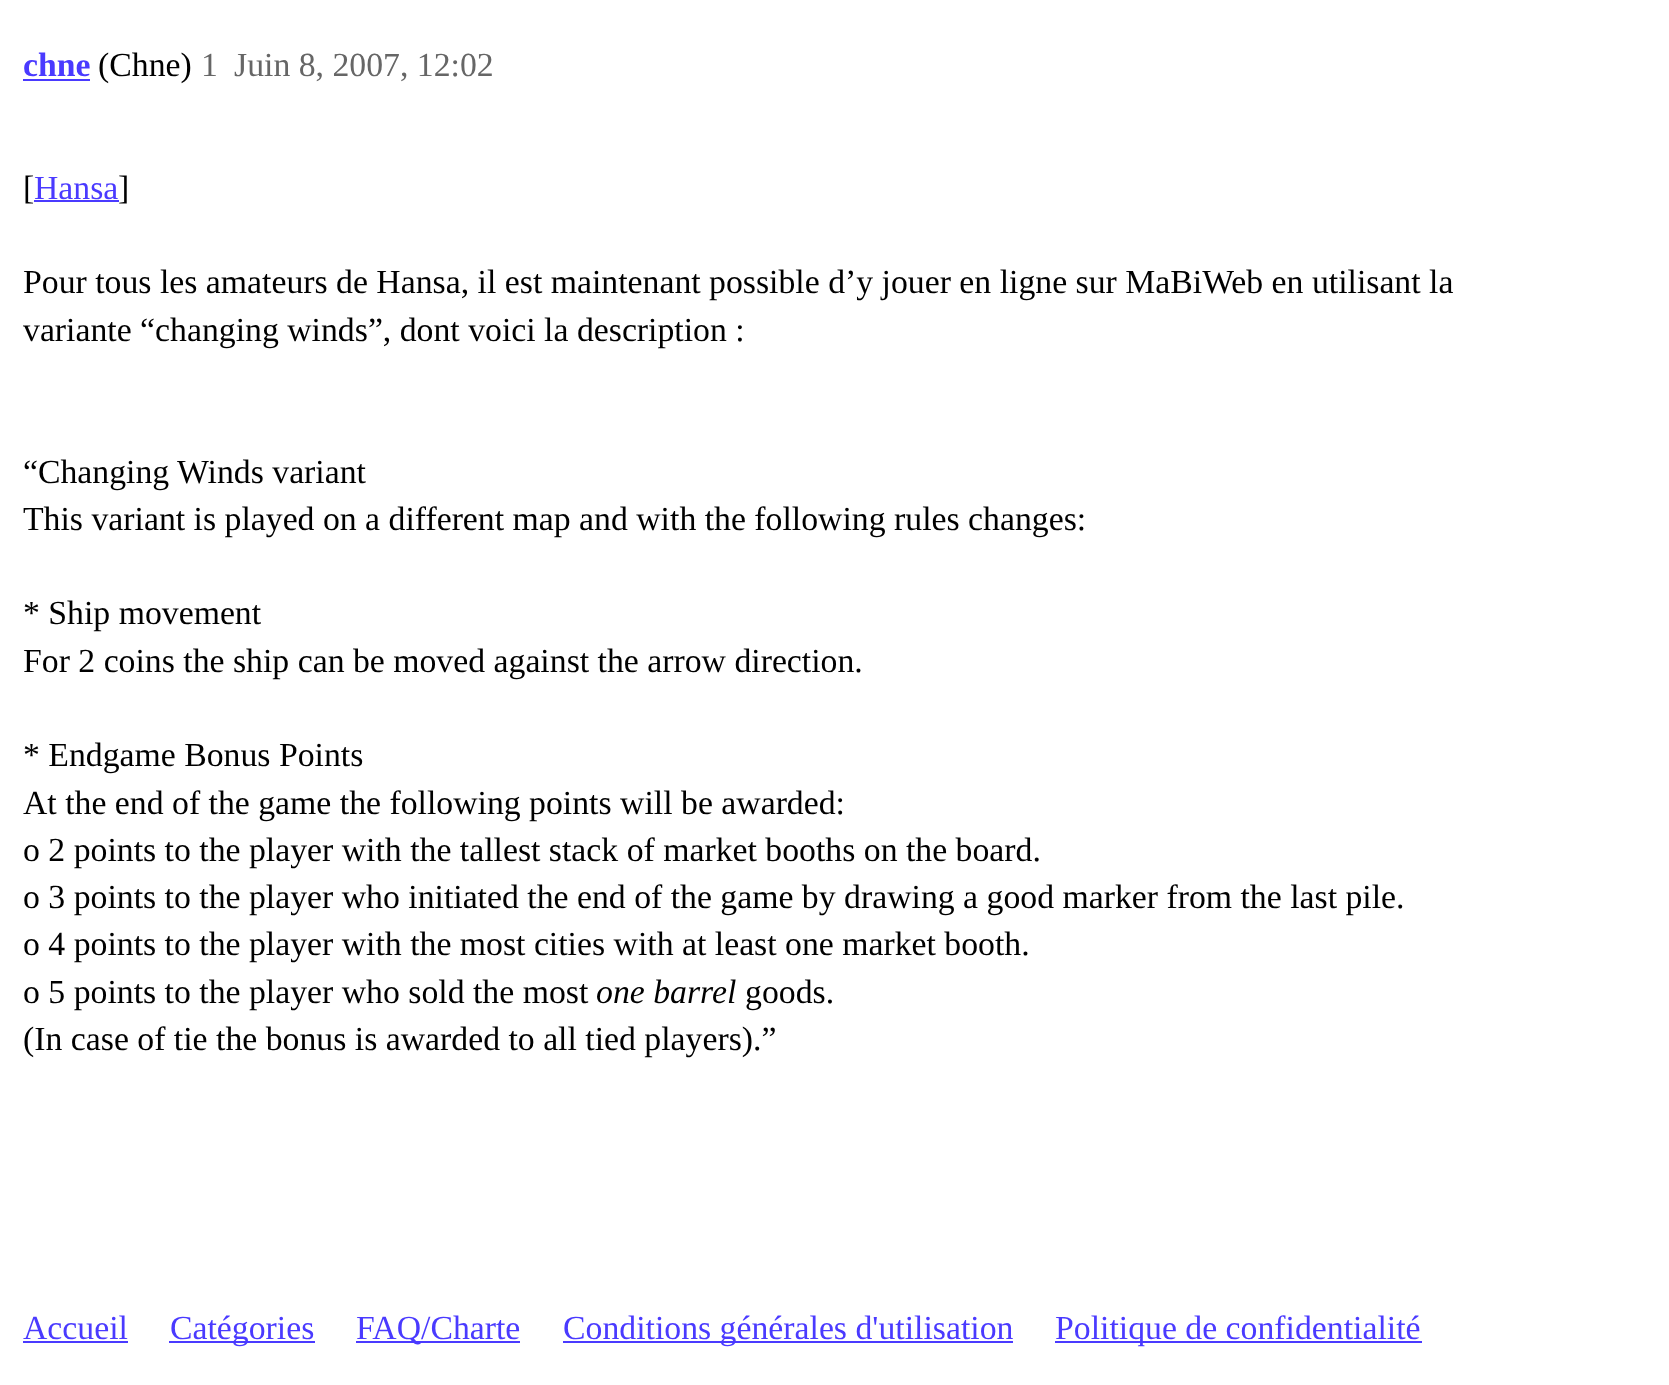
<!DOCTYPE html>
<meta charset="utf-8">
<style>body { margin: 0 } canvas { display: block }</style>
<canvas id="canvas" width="1669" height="1385"></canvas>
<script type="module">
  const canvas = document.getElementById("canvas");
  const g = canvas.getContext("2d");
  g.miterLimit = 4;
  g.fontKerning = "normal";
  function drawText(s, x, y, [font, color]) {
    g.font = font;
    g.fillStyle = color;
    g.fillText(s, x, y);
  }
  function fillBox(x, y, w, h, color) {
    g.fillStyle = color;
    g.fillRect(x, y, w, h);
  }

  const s1 = ["bold 33.75px Liberation Serif", "#4A3AFF"];
  const s2 = ["33.75px Liberation Serif", "#000000"];
  const s3 = ["33.75px Liberation Serif", "#666666"];
  const s4 = ["33.75px Liberation Serif", "#4A3AFF"];
  const s5 = ["italic 33.75px Liberation Serif", "#000000"];

  fillBox(0, 0, 1669, 1385, "#FFFFFF");
  drawText("chne", 23, 76, s1);
  fillBox(23, 79, 67, 2, "#4A3AFF");
  drawText("(Chne)", 98, 76, s2);
  drawText("1", 201, 76, s3);
  drawText("Juin 8, 2007, 12:02", 234, 76, s3);
  drawText("[", 23, 199, s2);
  drawText("Hansa", 34, 199, s4);
  fillBox(34, 200, 85, 2, "#4A3AFF");
  drawText("]", 118, 199, s2);
  drawText("Pour tous les amateurs de Hansa, il est maintenant possible d’y jouer en ligne sur MaBiWeb en utilisant la", 23, 293, s2);
  drawText("variante “changing winds”, dont voici la description :", 23, 341, s2);
  drawText("“Changing Winds variant", 23, 483, s2);
  drawText("This variant is played on a different map and with the following rules changes:", 23, 530, s2);
  drawText("* Ship movement", 23, 624, s2);
  drawText("For 2 coins the ship can be moved against the arrow direction.", 23, 672, s2);
  drawText("* Endgame Bonus Points", 23, 766, s2);
  drawText("At the end of the game the following points will be awarded:", 23, 814, s2);
  drawText("o 2 points to the player with the tallest stack of market booths on the board.", 23, 861, s2);
  drawText("o 3 points to the player who initiated the end of the game by drawing a good marker from the last pile.", 23, 908, s2);
  drawText("o 4 points to the player with the most cities with at least one market booth.", 23, 955, s2);
  drawText("o 5 points to the player who sold the most", 23, 1003, s2);
  drawText("one barrel", 596, 1003, s5);
  drawText("goods.", 745, 1003, s2);
  drawText("(In case of tie the bonus is awarded to all tied players).”", 23, 1050, s2);
  drawText("Accueil", 23, 1339, s4);
  fillBox(23, 1341, 105, 2, "#4A3AFF");
  fillBox(169, 1341, 146, 2, "#4A3AFF");
  drawText("Catégories", 170, 1339, s4);
  fillBox(356, 1341, 164, 2, "#4A3AFF");
  drawText("FAQ/Charte", 356, 1339, s4);
  fillBox(563, 1341, 450, 2, "#4A3AFF");
  drawText("Conditions générales d'utilisation", 563, 1339, s4);
  fillBox(1055, 1341, 367, 2, "#4A3AFF");
  drawText("Politique de confidentialité", 1055, 1339, s4);
</script>
